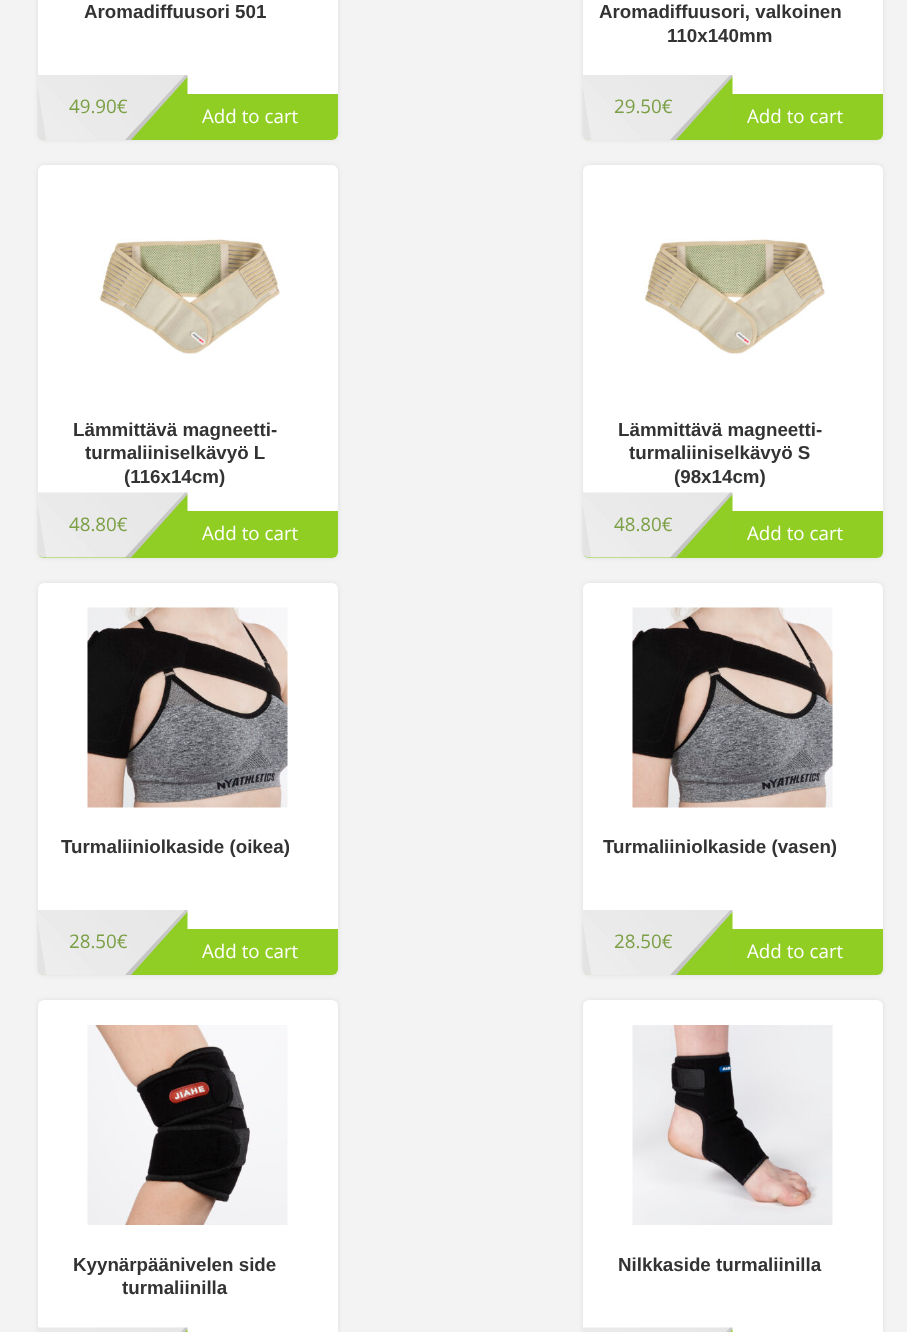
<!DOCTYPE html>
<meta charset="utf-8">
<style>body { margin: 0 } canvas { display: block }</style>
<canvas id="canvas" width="907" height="1332"></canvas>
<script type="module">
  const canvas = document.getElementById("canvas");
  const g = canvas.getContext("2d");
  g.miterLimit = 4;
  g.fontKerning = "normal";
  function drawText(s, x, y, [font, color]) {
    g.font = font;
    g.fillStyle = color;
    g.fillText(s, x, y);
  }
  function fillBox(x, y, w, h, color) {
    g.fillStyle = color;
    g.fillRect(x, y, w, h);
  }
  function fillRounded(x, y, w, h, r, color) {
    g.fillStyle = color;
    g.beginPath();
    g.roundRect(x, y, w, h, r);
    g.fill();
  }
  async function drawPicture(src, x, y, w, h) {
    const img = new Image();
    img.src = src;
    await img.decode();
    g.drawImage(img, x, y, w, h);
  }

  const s1 = ["bold 18.75px Liberation Sans", "#333333"];
  const s2 = ["18.75px Open Sans", "#7B9F45"];
  const s3 = ["18.75px Open Sans", "#FFFFFF"];

  fillBox(0, 0, 907, 1332, "#F3F3F3");
  g.fillStyle = "rgba(50, 50, 50, 0.1)";
  g.filter = "blur(2.5px)";
  g.beginPath();
  g.roundRect(38, -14, 300, 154, 6);
  g.fill();
  g.filter = "none";
  fillRounded(38, -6, 300, 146, 6, "#FFFFFF");
  drawText("Aromadiffuusori 501", 84, 18, s1);
  g.fillStyle = "#90CE24";
  g.beginPath();
  g.roundRect(38, 94, 300, 46, [4, 0, 6, 6]);
  g.fill();
  await drawPicture("pic1.png", 37, 75, 151, 65);
  drawText("49.90€", 69, 113, s2);
  drawText("Add to cart", 202, 123, s3);
  g.fillStyle = "rgba(50, 50, 50, 0.1)";
  g.filter = "blur(2.5px)";
  g.beginPath();
  g.roundRect(583, -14, 300, 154, 6);
  g.fill();
  g.filter = "none";
  fillRounded(583, -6, 300, 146, 6, "#FFFFFF");
  drawText("Aromadiffuusori, valkoinen", 599, 18, s1);
  drawText("110x140mm", 667, 42, s1);
  g.fillStyle = "#90CE24";
  g.beginPath();
  g.roundRect(583, 94, 300, 46, [4, 0, 6, 6]);
  g.fill();
  await drawPicture("pic1.png", 582, 75, 151, 65);
  drawText("29.50€", 614, 113, s2);
  drawText("Add to cart", 747, 123, s3);
  g.fillStyle = "rgba(50, 50, 50, 0.1)";
  g.filter = "blur(2.5px)";
  g.beginPath();
  g.roundRect(38, 165, 300, 393, 6);
  g.fill();
  g.filter = "none";
  fillRounded(38, 165, 300, 393, 6, "#FFFFFF");
  await drawPicture("pic2.png", 98, 238, 182, 116);
  drawText("Lämmittävä magneetti-", 73, 436, s1);
  drawText("turmaliiniselkävyö L", 85, 459, s1);
  drawText("(116x14cm)", 124, 483, s1);
  g.fillStyle = "#90CE24";
  g.beginPath();
  g.roundRect(38, 511, 300, 47, [4, 0, 6, 6]);
  g.fill();
  await drawPicture("pic3.png", 37, 492, 151, 66);
  drawText("48.80€", 69, 531, s2);
  drawText("Add to cart", 202, 540, s3);
  g.fillStyle = "rgba(50, 50, 50, 0.1)";
  g.filter = "blur(2.5px)";
  g.beginPath();
  g.roundRect(583, 165, 300, 393, 6);
  g.fill();
  g.filter = "none";
  fillRounded(583, 165, 300, 393, 6, "#FFFFFF");
  await drawPicture("pic2.png", 643, 238, 182, 116);
  drawText("Lämmittävä magneetti-", 618, 436, s1);
  drawText("turmaliiniselkävyö S", 629, 459, s1);
  drawText("(98x14cm)", 674, 483, s1);
  g.fillStyle = "#90CE24";
  g.beginPath();
  g.roundRect(583, 511, 300, 47, [4, 0, 6, 6]);
  g.fill();
  await drawPicture("pic3.png", 582, 492, 151, 66);
  drawText("48.80€", 614, 531, s2);
  drawText("Add to cart", 747, 540, s3);
  g.fillStyle = "rgba(50, 50, 50, 0.1)";
  g.filter = "blur(2.5px)";
  g.beginPath();
  g.roundRect(38, 583, 300, 392, 6);
  g.fill();
  g.filter = "none";
  fillRounded(38, 583, 300, 392, 6, "#FFFFFF");
  await drawPicture("pic4.png", 87, 607, 201, 201);
  drawText("Turmaliiniolkaside (oikea)", 61, 853, s1);
  g.fillStyle = "#90CE24";
  g.beginPath();
  g.roundRect(38, 929, 300, 46, [4, 0, 6, 6]);
  g.fill();
  await drawPicture("pic1.png", 37, 910, 151, 65);
  drawText("28.50€", 69, 948, s2);
  drawText("Add to cart", 202, 958, s3);
  g.fillStyle = "rgba(50, 50, 50, 0.1)";
  g.filter = "blur(2.5px)";
  g.beginPath();
  g.roundRect(583, 583, 300, 392, 6);
  g.fill();
  g.filter = "none";
  fillRounded(583, 583, 300, 392, 6, "#FFFFFF");
  await drawPicture("pic4.png", 632, 607, 201, 201);
  drawText("Turmaliiniolkaside (vasen)", 603, 853, s1);
  g.fillStyle = "#90CE24";
  g.beginPath();
  g.roundRect(583, 929, 300, 46, [4, 0, 6, 6]);
  g.fill();
  await drawPicture("pic1.png", 582, 910, 151, 65);
  drawText("28.50€", 614, 948, s2);
  drawText("Add to cart", 747, 958, s3);
  g.fillStyle = "rgba(50, 50, 50, 0.1)";
  g.filter = "blur(2.5px)";
  g.beginPath();
  g.roundRect(38, 1000, 300, 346, 6);
  g.fill();
  g.filter = "none";
  fillRounded(38, 1000, 300, 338, 6, "#FFFFFF");
  await drawPicture("pic5.png", 87, 1025, 201, 200);
  drawText("Kyynärpäänivelen side", 73, 1271, s1);
  drawText("turmaliinilla", 122, 1294, s1);
  await drawPicture("pic6.png", 38, 1327, 150, 5);
  g.fillStyle = "rgba(50, 50, 50, 0.1)";
  g.filter = "blur(2.5px)";
  g.beginPath();
  g.roundRect(583, 1000, 300, 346, 6);
  g.fill();
  g.filter = "none";
  fillRounded(583, 1000, 300, 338, 6, "#FFFFFF");
  await drawPicture("pic7.png", 632, 1025, 201, 200);
  drawText("Nilkkaside turmaliinilla", 618, 1271, s1);
  await drawPicture("pic6.png", 583, 1327, 150, 5);
</script>
